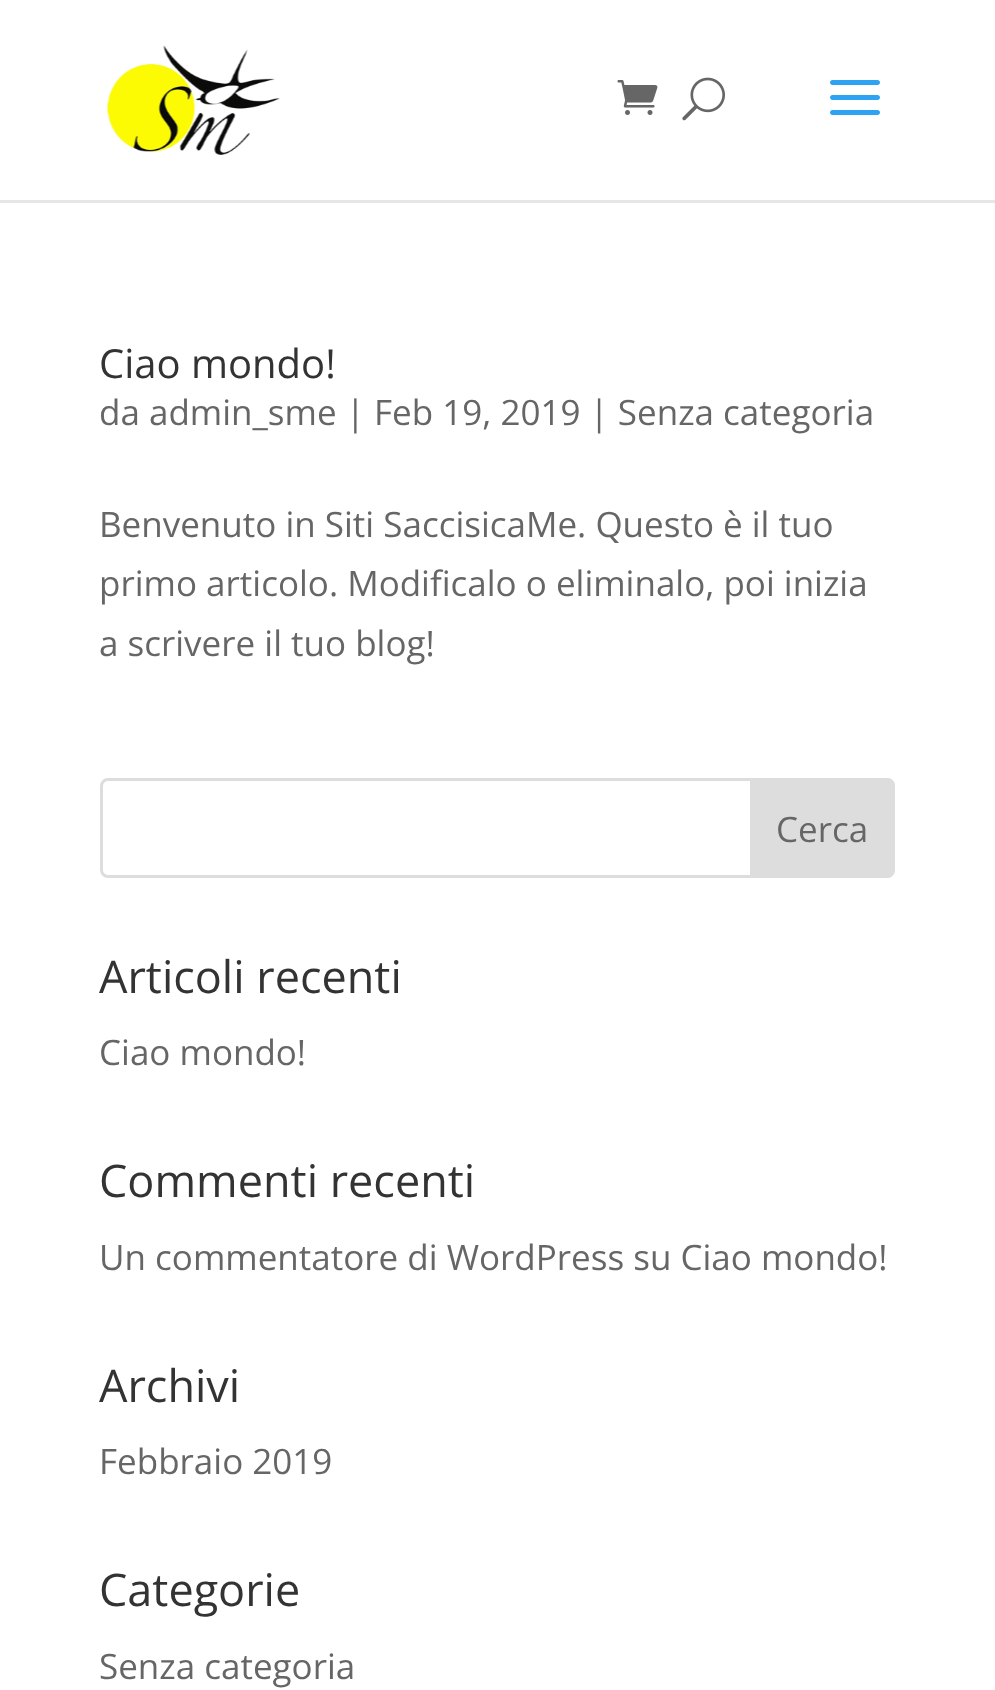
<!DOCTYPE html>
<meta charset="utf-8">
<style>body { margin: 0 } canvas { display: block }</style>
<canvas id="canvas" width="995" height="1690"></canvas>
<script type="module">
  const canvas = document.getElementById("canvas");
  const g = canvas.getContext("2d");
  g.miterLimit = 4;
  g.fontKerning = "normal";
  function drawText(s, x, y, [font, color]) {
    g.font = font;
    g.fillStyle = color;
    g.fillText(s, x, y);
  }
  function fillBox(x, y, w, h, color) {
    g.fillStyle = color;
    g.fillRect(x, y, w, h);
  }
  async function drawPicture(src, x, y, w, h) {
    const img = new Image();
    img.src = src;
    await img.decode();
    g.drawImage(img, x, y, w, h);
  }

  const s1 = ["40px Open Sans", "#333333"];
  const s2 = ["35px Open Sans", "#666666"];
  const s3 = ["45px Open Sans", "#333333"];

  fillBox(0, 0, 995, 1690, "#FFFFFF");
  fillBox(0, 200, 995, 3, "#E6E6E6");
  await drawPicture("pic1.png", 107, 45, 173, 110);
  await drawPicture("pic2.png", 617, 80, 41, 35);
  await drawPicture("pic3.png", 682, 77, 43, 44);
  await drawPicture("pic4.png", 830, 80, 50, 35);
  drawText("Ciao mondo!", 99, 378, s1);
  drawText("da admin_sme | Feb 19, 2019 | Senza categoria", 99, 425, s2);
  drawText("Benvenuto in Siti SaccisicaMe. Questo è il tuo", 99, 537, s2);
  drawText("primo articolo. Modificalo o eliminalo, poi inizia", 99, 596, s2);
  drawText("a scrivere il tuo blog!", 99, 656, s2);
  g.beginPath();
  g.roundRect(101.5, 779.5, 792, 97, 6.5);
  g.strokeStyle = "#DDDDDD";
  g.lineWidth = 3;
  g.stroke();
  g.fillStyle = "#DDDDDD";
  g.beginPath();
  g.roundRect(751.5, 779.5, 142, 97, [0, 6.5, 6.5, 0]);
  g.fill();
  g.stroke();
  drawText("Cerca", 776, 842, s2);
  drawText("Articoli recenti", 99, 993, s3);
  drawText("Ciao mondo!", 99, 1065, s2);
  drawText("Commenti recenti", 99, 1197, s3);
  drawText("Un commentatore di WordPress su Ciao mondo!", 99, 1270, s2);
  drawText("Archivi", 99, 1402, s3);
  drawText("Febbraio 2019", 99, 1474, s2);
  drawText("Categorie", 99, 1606, s3);
  drawText("Senza categoria", 99, 1679, s2);
</script>
